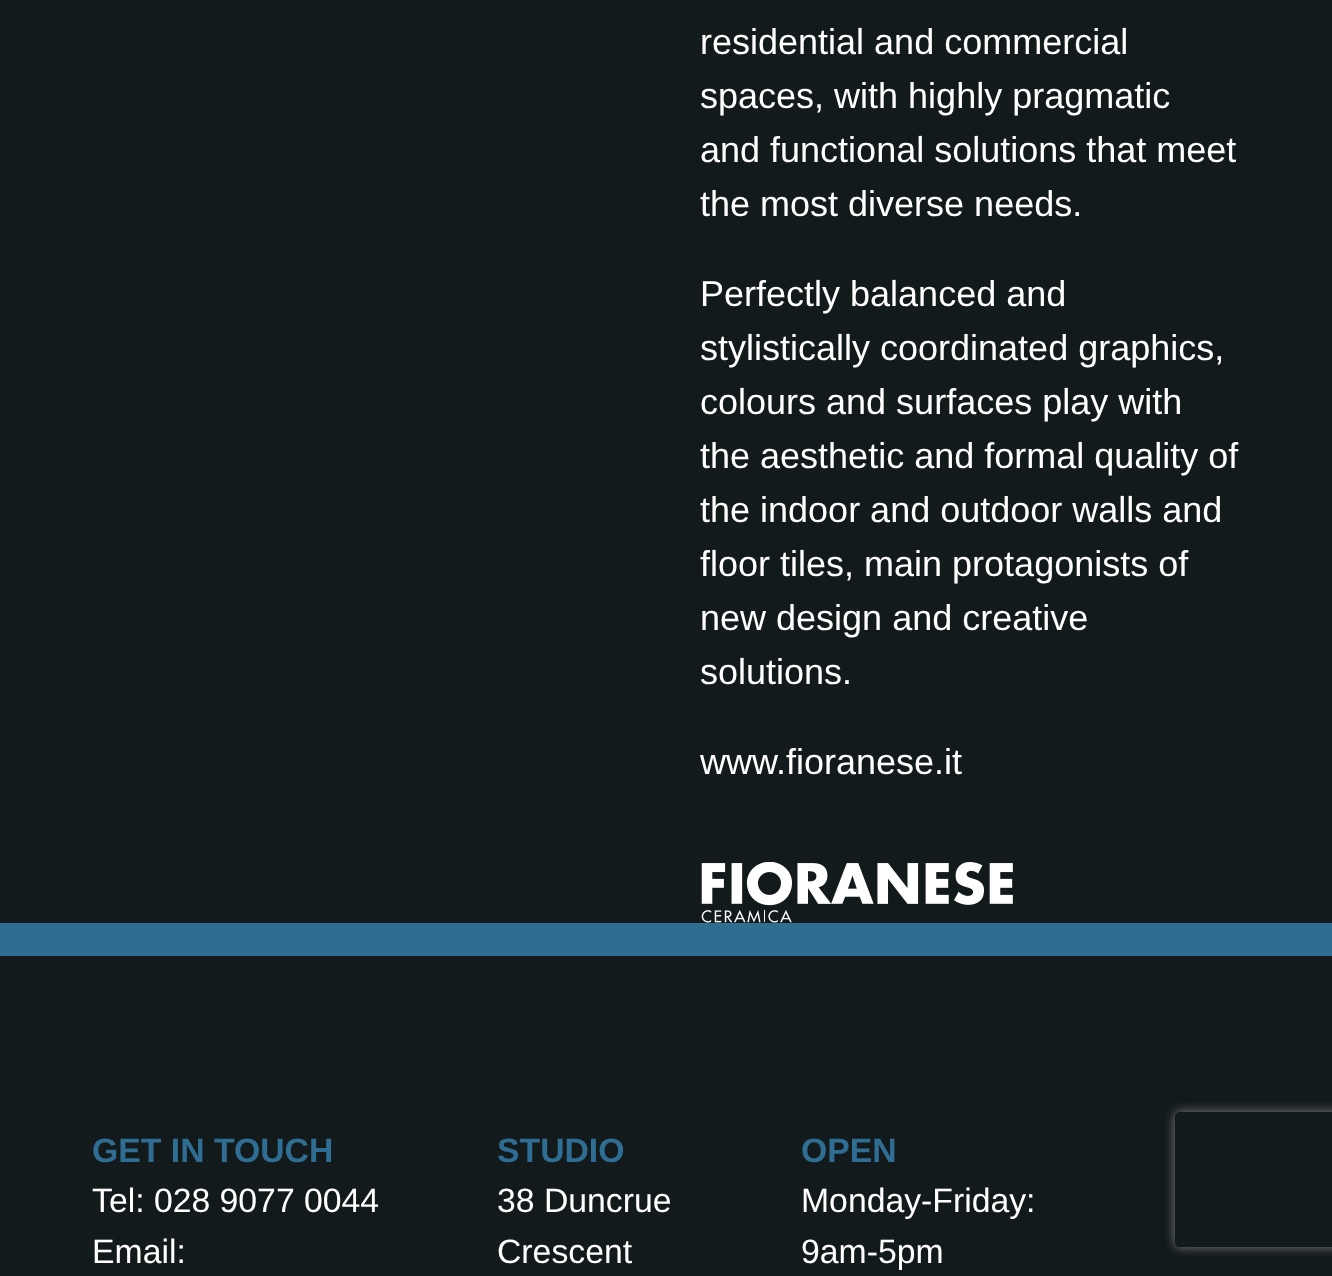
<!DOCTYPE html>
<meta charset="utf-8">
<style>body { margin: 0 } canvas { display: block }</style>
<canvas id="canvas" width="1332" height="1276"></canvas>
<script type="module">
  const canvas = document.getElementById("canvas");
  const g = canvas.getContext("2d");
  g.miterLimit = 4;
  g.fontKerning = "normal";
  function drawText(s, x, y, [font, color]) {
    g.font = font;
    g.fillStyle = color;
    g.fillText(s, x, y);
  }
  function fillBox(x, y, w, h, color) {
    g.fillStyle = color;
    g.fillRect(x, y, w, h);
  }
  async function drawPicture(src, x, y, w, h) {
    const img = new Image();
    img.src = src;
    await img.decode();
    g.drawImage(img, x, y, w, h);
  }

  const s1 = ["36px Liberation Sans", "#FFFFFF"];
  const s2 = ["bold 33.75px Liberation Sans", "#2F6D93"];
  const s3 = ["33.75px Liberation Sans", "#FFFFFF"];

  fillBox(0, 0, 1332, 1276, "#131A1C");
  drawText("residential and commercial", 700, 54, s1);
  drawText("spaces, with highly pragmatic", 700, 108, s1);
  drawText("and functional solutions that meet", 700, 162, s1);
  drawText("the most diverse needs.", 700, 216, s1);
  drawText("Perfectly balanced and", 700, 306, s1);
  drawText("stylistically coordinated graphics,", 700, 360, s1);
  drawText("colours and surfaces play with", 700, 414, s1);
  drawText("the aesthetic and formal quality of", 700, 468, s1);
  drawText("the indoor and outdoor walls and", 700, 522, s1);
  drawText("floor tiles, main protagonists of", 700, 576, s1);
  drawText("new design and creative", 700, 630, s1);
  drawText("solutions.", 700, 684, s1);
  drawText("www.fioranese.it", 700, 774, s1);
  await drawPicture("pic1.png", 701, 862, 312, 61);
  fillBox(0, 923, 1332, 33, "#2F6D93");
  drawText("GET IN TOUCH", 92, 1162, s2);
  drawText("Tel: 028 9077 0044", 92, 1212, s3);
  drawText("Email:", 92, 1263, s3);
  drawText("STUDIO", 497, 1162, s2);
  drawText("38 Duncrue", 497, 1212, s3);
  drawText("Crescent", 497, 1263, s3);
  drawText("OPEN", 801, 1162, s2);
  drawText("Monday-Friday:", 801, 1212, s3);
  drawText("9am-5pm", 801, 1263, s3);
  g.save();
  g.beginPath();
  g.moveTo(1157, 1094);
  g.lineTo(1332, 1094);
  g.lineTo(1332, 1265);
  g.lineTo(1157, 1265);
  g.closePath();
  g.moveTo(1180, 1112);
  g.lineTo(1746, 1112);
  g.bezierCurveTo(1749, 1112, 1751, 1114, 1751, 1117);
  g.lineTo(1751, 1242);
  g.bezierCurveTo(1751, 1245, 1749, 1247, 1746, 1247);
  g.lineTo(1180, 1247);
  g.bezierCurveTo(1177, 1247, 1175, 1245, 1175, 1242);
  g.lineTo(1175, 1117);
  g.bezierCurveTo(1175, 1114, 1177, 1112, 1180, 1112);
  g.closePath();
  g.clip("evenodd");
  g.fillStyle = "#808080";
  g.filter = "blur(5.5px)";
  g.beginPath();
  g.roundRect(1175, 1112, 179, 135, 5);
  g.fill();
  g.filter = "none";
  g.restore();
</script>
